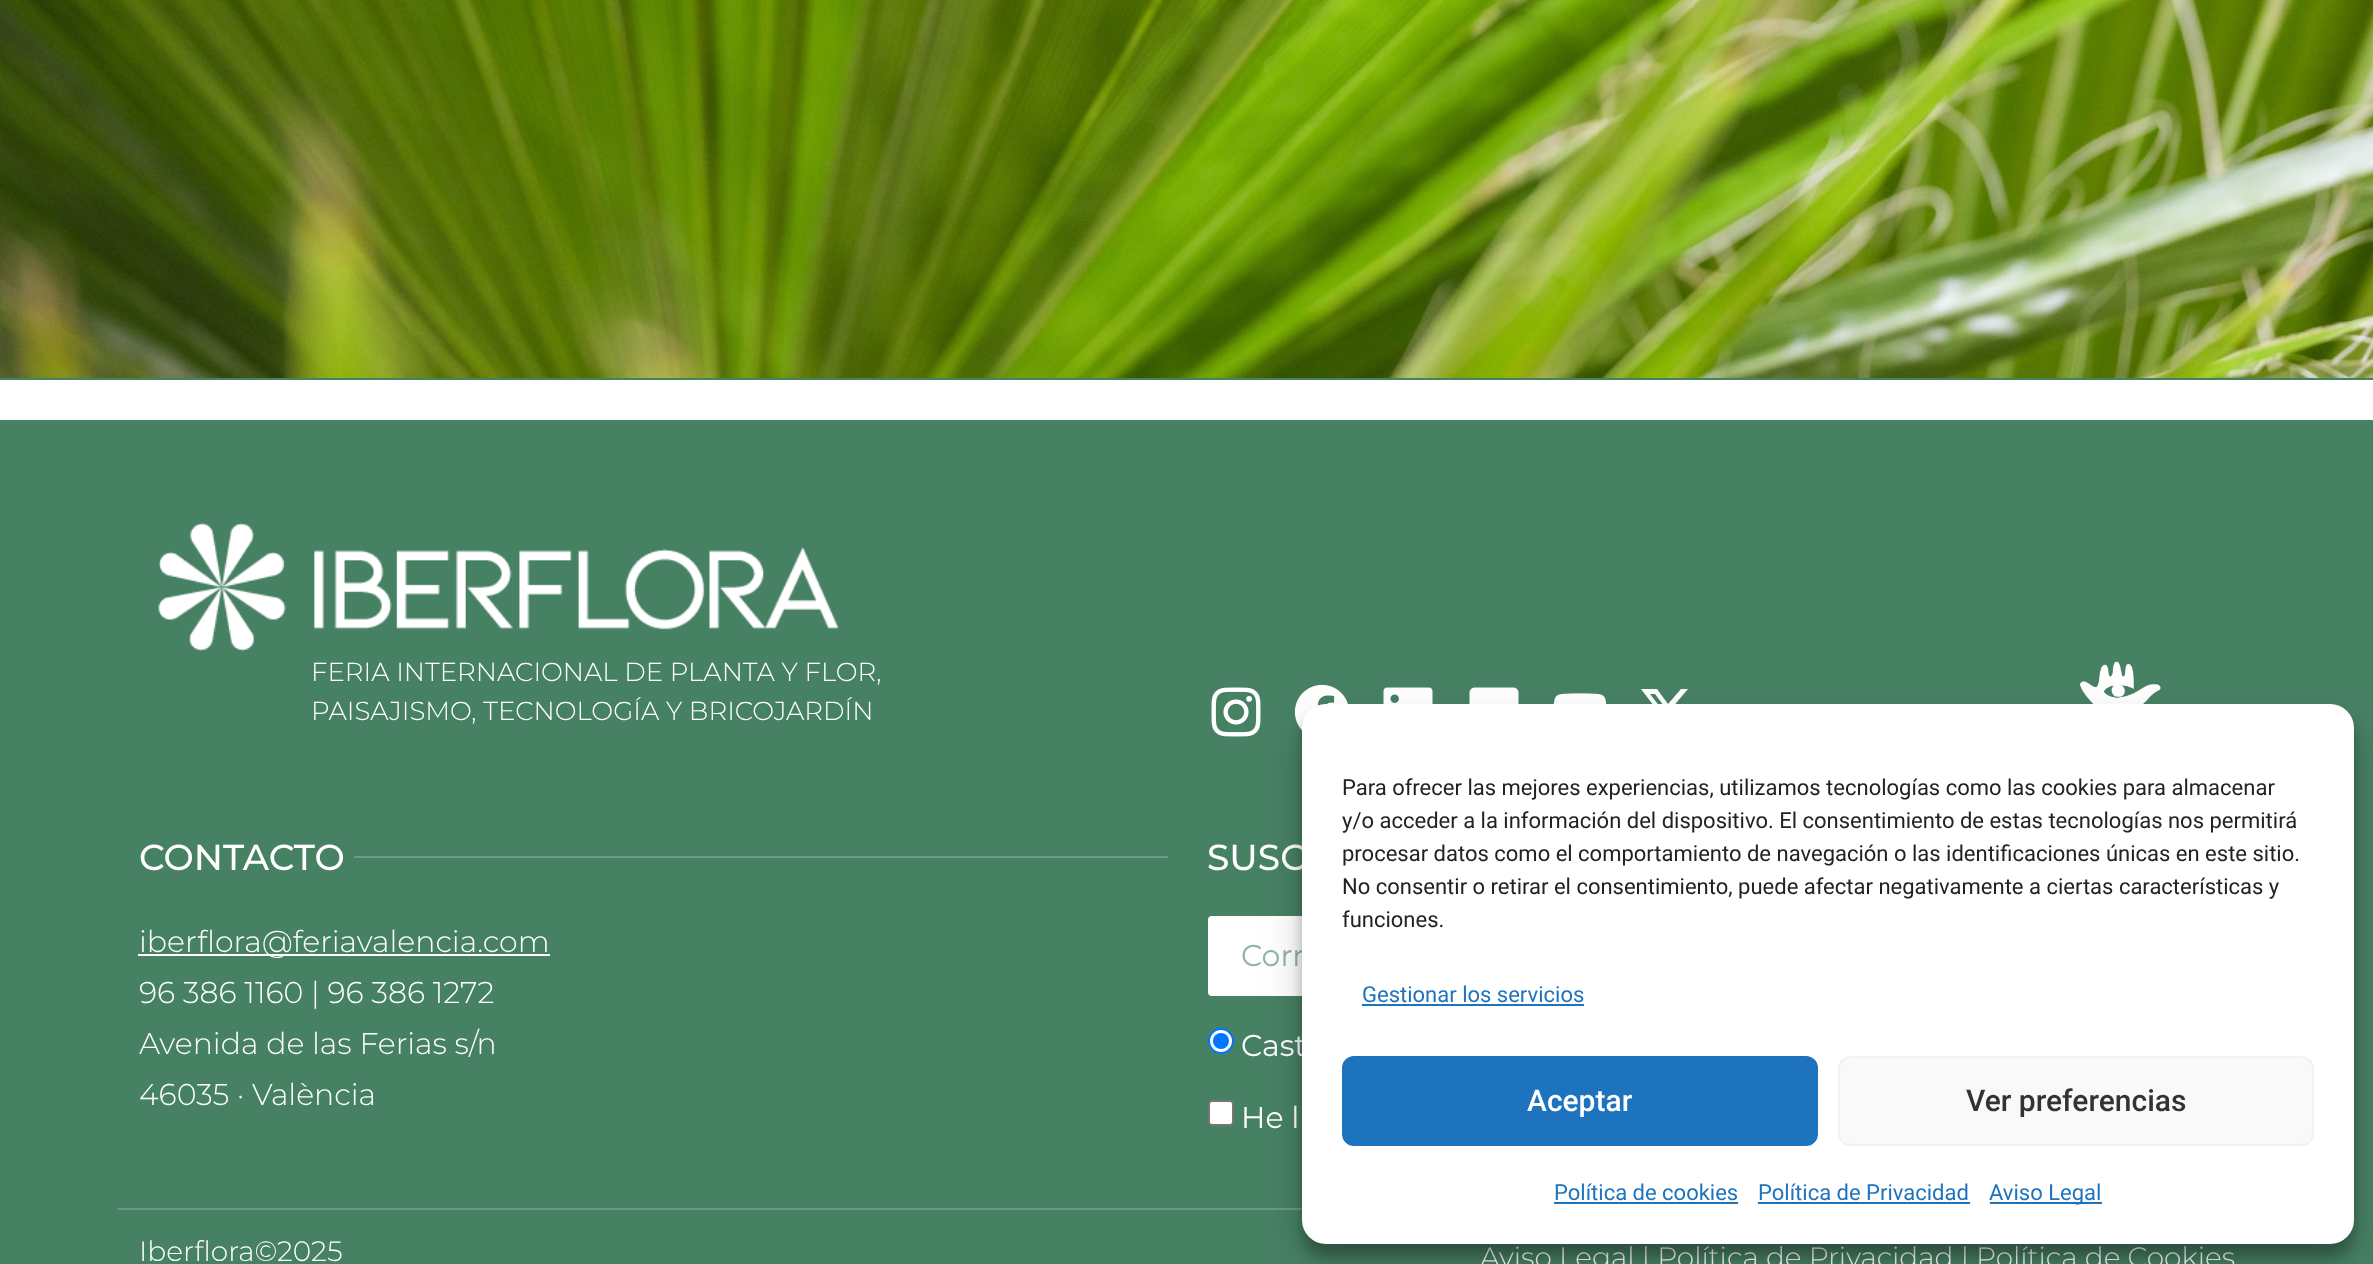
<!DOCTYPE html>
<meta charset="utf-8">
<style>body { margin: 0 } canvas { display: block }</style>
<canvas id="canvas" width="2373" height="1264"></canvas>
<script type="module">
  const canvas = document.getElementById("canvas");
  const g = canvas.getContext("2d");
  g.miterLimit = 4;
  g.fontKerning = "normal";
  function drawText(s, x, y, [font, color]) {
    g.font = font;
    g.fillStyle = color;
    g.fillText(s, x, y);
  }
  function fillBox(x, y, w, h, color) {
    g.fillStyle = color;
    g.fillRect(x, y, w, h);
  }
  function fillRounded(x, y, w, h, r, color) {
    g.fillStyle = color;
    g.beginPath();
    g.roundRect(x, y, w, h, r);
    g.fill();
  }
  async function drawPicture(src, x, y, w, h) {
    const img = new Image();
    img.src = src;
    await img.decode();
    g.drawImage(img, x, y, w, h);
  }

  const s1 = ["300 26px Montserrat", "#FFFFFF"];
  const s2 = ["500 36px Montserrat", "#FFFFFF"];
  const s3 = ["300 30px Montserrat", "#FFFFFF"];
  const s4 = ["30px Montserrat", "#91B3A2"];
  const s5 = ["30px Montserrat", "#FFFFFF"];
  const s6 = ["300 28px Montserrat", "#FFFFFF"];
  const s7 = ["22px Roboto", "#222222"];
  const s8 = ["22px Roboto", "#1E73BE"];
  const s9 = ["500 30px Roboto", "#FFFFFF"];
  const s10 = ["500 30px Roboto", "#333333"];

  fillBox(0, 0, 2373, 1264, "#FFFFFF");
  await drawPicture("pic1.png", 0, 0, 2373, 378);
  fillBox(0, 378, 2373, 2, "#478164");
  fillBox(0, 420, 2373, 844, "#478164");
  await drawPicture("pic2.png", 158, 522, 681, 130);
  drawText("FERIA INTERNACIONAL DE PLANTA Y FLOR,", 311, 681, s1);
  drawText("PAISAJISMO, TECNOLOGÍA Y BRICOJARDÍN", 311, 720, s1);
  await drawPicture("pic3.png", 1211, 687, 50, 50);
  await drawPicture("pic4.png", 1294, 684, 54, 47);
  await drawPicture("pic5.png", 1383, 687, 50, 17);
  await drawPicture("pic6.png", 1469, 687, 50, 17);
  await drawPicture("pic7.png", 1553, 693, 54, 11);
  g.beginPath();
  g.moveTo(1681, 689);
  g.lineTo(1688, 689);
  g.lineTo(1671, 709);
  g.lineTo(1691, 735);
  g.lineTo(1676, 735);
  g.lineTo(1664, 719);
  g.lineTo(1650, 735);
  g.lineTo(1642, 735);
  g.lineTo(1660, 714);
  g.lineTo(1641, 689);
  g.lineTo(1657, 689);
  g.lineTo(1668, 704);
  g.closePath();
  g.moveTo(1678, 730);
  g.lineTo(1682, 730);
  g.lineTo(1655, 694);
  g.lineTo(1650, 694);
  g.closePath();
  g.fill();
  await drawPicture("pic8.png", 2079, 661, 82, 43);
  drawText("CONTACTO", 139, 870, s2);
  fillBox(354, 856, 814, 2, "#6E9B85");
  fillBox(138, 954, 412, 2, "#FFFFFF");
  drawText("iberflora@feriavalencia.com", 139, 952, s3);
  drawText("96 386 1160 | 96 386 1272", 139, 1003, s3);
  drawText("Avenida de las Ferias s/n", 139, 1054, s3);
  drawText("46035 · València", 139, 1105, s3);
  drawText("SUSC", 1207, 870, s2);
  g.beginPath();
  g.roundRect(1209, 917, 602, 78, 3);
  g.fill();
  g.strokeStyle = "#FFFFFF";
  g.lineWidth = 2;
  g.stroke();
  drawText("Corr", 1241, 966, s4);
  g.fillStyle = "#FFFFFF";
  g.beginPath();
  g.arc(1221, 1041, 12, 0, Math.PI * 2);
  g.fill();
  g.strokeStyle = "#0075FF";
  g.stroke();
  g.fillStyle = "#0075FF";
  g.beginPath();
  g.arc(1221, 1041, 8, 0, Math.PI * 2);
  g.fill();
  drawText("Cast", 1241, 1056, s5);
  g.beginPath();
  g.roundRect(1209, 1101, 24, 24, 3);
  g.fill();
  g.strokeStyle = "#767676";
  g.stroke();
  drawText("He l", 1241, 1128, s5);
  fillBox(118, 1208, 1184, 2, "#6C9A83");
  drawText("Iberflora©2025", 139, 1261, s6);
  drawText("Aviso Legal | Política de Privacidad | Política de Cookies", 1480, 1267, s6);
  g.fillStyle = "rgba(0, 0, 0, 0.23)";
  g.filter = "blur(6px)";
  g.beginPath();
  g.roundRect(1302, 716, 1052, 540, 24);
  g.fill();
  g.filter = "none";
  g.fillStyle = "rgba(0, 0, 0, 0.19)";
  g.filter = "blur(20px)";
  g.beginPath();
  g.roundRect(1302, 724, 1052, 540, 24);
  g.fill();
  g.filter = "none";
  fillRounded(1302, 704, 1052, 540, 24, "#FFFFFF");
  drawText("Para ofrecer las mejores experiencias, utilizamos tecnologías como las cookies para almacenar", 1342, 795, s7);
  drawText("y/o acceder a la información del dispositivo. El consentimiento de estas tecnologías nos permitirá", 1342, 828, s7);
  drawText("procesar datos como el comportamiento de navegación o las identificaciones únicas en este sitio.", 1342, 861, s7);
  drawText("No consentir o retirar el consentimiento, puede afectar negativamente a ciertas características y", 1342, 894, s7);
  drawText("funciones.", 1342, 927, s7);
  drawText("Gestionar los servicios", 1362, 1002, s8);
  fillBox(1362, 1004, 222, 2, "#1E73BE");
  g.beginPath();
  g.roundRect(1343, 1057, 474, 88, 11);
  g.fill();
  g.strokeStyle = "#1E73BE";
  g.stroke();
  drawText("Aceptar", 1527, 1111, s9);
  g.fillStyle = "#F9F9F9";
  g.beginPath();
  g.roundRect(1839, 1057, 474, 88, 11);
  g.fill();
  g.strokeStyle = "#F2F2F2";
  g.stroke();
  drawText("Ver preferencias", 1966, 1111, s10);
  drawText("Política de cookies", 1554, 1200, s8);
  fillBox(1554, 1202, 184, 2, "#1E73BE");
  drawText("Política de Privacidad", 1758, 1200, s8);
  fillBox(1758, 1202, 212, 2, "#1E73BE");
  fillBox(1990, 1202, 112, 2, "#1E73BE");
  drawText("Aviso Legal", 1989, 1200, s8);
</script>
